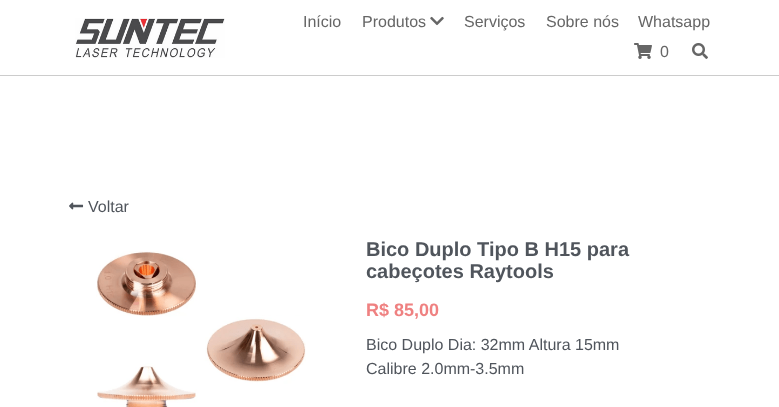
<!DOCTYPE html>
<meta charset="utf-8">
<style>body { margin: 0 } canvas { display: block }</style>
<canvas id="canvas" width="779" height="407"></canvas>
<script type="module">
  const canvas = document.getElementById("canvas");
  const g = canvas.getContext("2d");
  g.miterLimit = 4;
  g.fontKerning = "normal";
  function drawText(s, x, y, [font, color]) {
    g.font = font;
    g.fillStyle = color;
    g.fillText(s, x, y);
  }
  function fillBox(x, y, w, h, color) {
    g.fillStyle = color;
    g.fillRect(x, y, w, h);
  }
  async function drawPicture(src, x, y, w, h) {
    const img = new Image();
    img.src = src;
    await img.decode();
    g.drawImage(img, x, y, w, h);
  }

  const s1 = ["16px Liberation Sans", "#666666"];
  const s2 = ["16px Liberation Sans", "#50555C"];
  const s3 = ["bold 20px Liberation Sans", "#50555C"];
  const s4 = ["bold 18px Liberation Sans", "#EF8181"];

  fillBox(0, 0, 779, 407, "#FFFFFF");
  fillBox(0, 75, 779, 1, "#CCCCCC");
  await drawPicture("pic1.png", 75, 18, 150, 40);
  drawText("Início", 303, 27, s1);
  drawText("Produtos", 362, 27, s1);
  await drawPicture("pic2.png", 430, 16, 14, 10);
  drawText("Serviços", 464, 27, s1);
  drawText("Sobre nós", 546, 27, s1);
  drawText("Whatsapp", 638, 27, s1);
  await drawPicture("pic3.png", 634, 43, 18, 16);
  drawText("0", 660, 57, s1);
  await drawPicture("pic4.png", 692, 43, 16, 16);
  await drawPicture("pic5.png", 69, 202, 15, 8);
  drawText("Voltar", 88, 212, s2);
  await drawPicture("pic6.png", 96, 251, 210, 156);
  drawText("Bico Duplo Tipo B H15 para", 366, 256, s3);
  drawText("cabeçotes Raytools", 366, 278, s3);
  drawText("R$ 85,00", 366, 316, s4);
  drawText("Bico Duplo Dia: 32mm Altura 15mm", 366, 350, s2);
  drawText("Calibre 2.0mm-3.5mm", 366, 374, s2);
</script>
